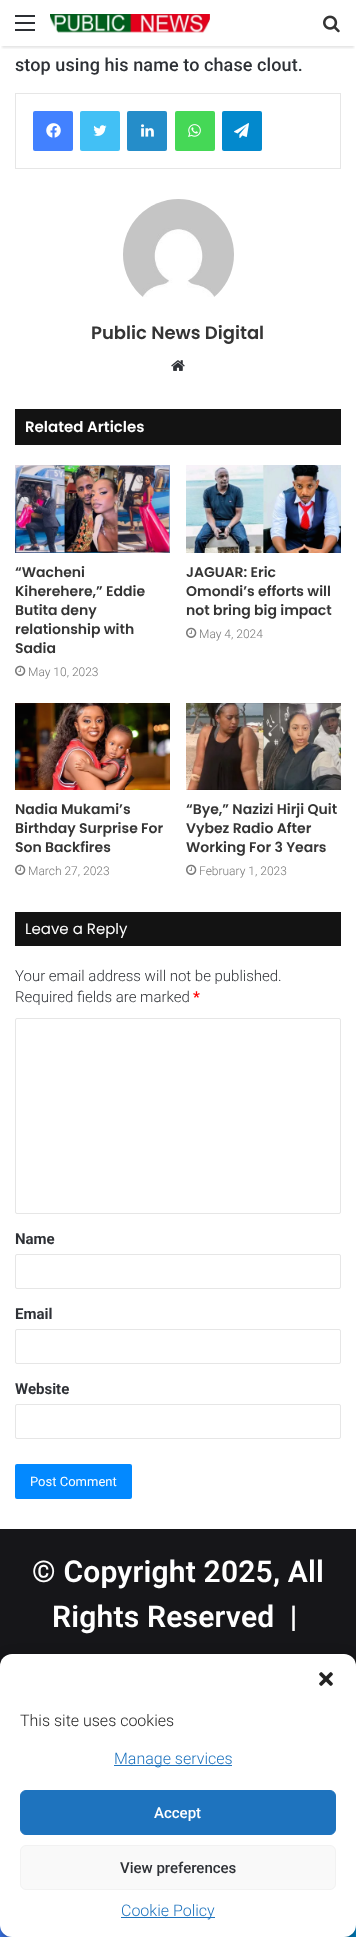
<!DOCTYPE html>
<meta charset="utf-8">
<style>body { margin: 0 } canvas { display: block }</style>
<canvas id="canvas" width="356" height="1937"></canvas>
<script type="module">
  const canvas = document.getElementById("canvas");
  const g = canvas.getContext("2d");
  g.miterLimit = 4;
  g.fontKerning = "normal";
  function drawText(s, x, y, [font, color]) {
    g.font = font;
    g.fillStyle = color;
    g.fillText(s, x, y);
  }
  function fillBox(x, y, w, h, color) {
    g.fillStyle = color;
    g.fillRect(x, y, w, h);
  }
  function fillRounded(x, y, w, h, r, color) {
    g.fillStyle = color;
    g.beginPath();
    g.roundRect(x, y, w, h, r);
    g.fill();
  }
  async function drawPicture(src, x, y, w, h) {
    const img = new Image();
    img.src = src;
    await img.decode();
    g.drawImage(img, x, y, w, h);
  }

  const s1 = ["500 18px Roboto", "#2E3136"];
  const s2 = ["600 18px Poppins", "#353535"];
  const s3 = ["600 15px Poppins", "#FFFFFF"];
  const s4 = ["600 14px Poppins", "#353535"];
  const s5 = ["300 12px Roboto", "#777777"];
  const s6 = ["15px Poppins", "#FFFFFF"];
  const s7 = ["300 15px Roboto", "#2E3136"];
  const s8 = ["bold 15px Roboto", "#FF0303"];
  const s9 = ["bold 15px Roboto", "#2E3136"];
  const s10 = ["13px Roboto", "#FFFFFF"];
  const s11 = ["600 30px Roboto", "#FFFFFF"];
  const s12 = ["300 16px Roboto", "#222222"];
  const s13 = ["300 16px Roboto", "#1E73BE"];
  const s14 = ["500 15px Roboto", "#FFFFFF"];
  const s15 = ["500 15px Roboto", "#2E3136"];

  fillBox(0, 0, 356, 1937, "#FFFFFF");
  g.save();
  g.beginPath();
  g.rect(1, 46, 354, 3);
  g.clip();
  g.fillStyle = "rgba(0, 0, 0, 0.1)";
  g.filter = "blur(1px)";
  g.beginPath();
  g.rect(2, 6, 352, 42);
  g.fill();
  g.filter = "none";
  g.restore();
  fillBox(15, 22, 20, 2, "#2C2F34");
  fillBox(15, 15, 20, 2, "#2C2F34");
  fillBox(15, 29, 20, 2, "#2C2F34");
  await drawPicture("pic1.png", 50, 14, 160, 19);
  await drawPicture("pic2.png", 323, 15, 17, 18);
  g.letterSpacing = "0.1px";
  drawText("stop using his name to chase clout.", 15, 71, s1);
  g.strokeStyle = "#E6E6E6";
  g.strokeRect(15.5, 93.5, 325, 75);
  fillRounded(33, 111, 40, 40, 2, "#4281FF");
  await drawPicture("pic3.png", 46, 123, 15, 15);
  fillRounded(80, 111, 40, 40, 2, "#42C0F5");
  await drawPicture("pic4.png", 93, 125, 14, 11);
  fillRounded(127, 111, 40, 40, 2, "#258DC9");
  await drawPicture("pic5.png", 141, 124, 13, 13);
  fillRounded(175, 111, 40, 40, 2, "#45D856");
  await drawPicture("pic6.png", 188, 124, 13, 13);
  fillRounded(222, 111, 40, 40, 2, "#0389CD");
  await drawPicture("pic7.png", 234, 123, 15, 15);
  await drawPicture("pic8.png", 123, 199, 111, 98);
  g.letterSpacing = "0px";
  drawText("Public News Digital", 91, 339, s2);
  await drawPicture("pic9.png", 171, 360, 14, 11);
  fillBox(15, 409, 326, 36, "#131313");
  drawText("Related Articles", 25, 432, s3);
  await drawPicture("pic10.png", 15, 465, 155, 88);
  drawText("“Wacheni", 15, 577, s4);
  drawText("Kiherehere,” Eddie", 15, 596, s4);
  drawText("Butita deny", 15, 615, s4);
  drawText("relationship with", 15, 634, s4);
  drawText("Sadia", 15, 653, s4);
  await drawPicture("pic11.png", 15, 665, 11, 11);
  drawText("May 10, 2023", 28, 676, s5);
  await drawPicture("pic12.png", 186, 465, 155, 88);
  drawText("JAGUAR: Eric", 186, 577, s4);
  drawText("Omondi’s efforts will", 186, 596, s4);
  drawText("not bring big impact", 186, 615, s4);
  await drawPicture("pic11.png", 186, 627, 11, 11);
  drawText("May 4, 2024", 199, 638, s5);
  await drawPicture("pic13.png", 15, 703, 155, 87);
  drawText("Nadia Mukami’s", 15, 814, s4);
  drawText("Birthday Surprise For", 15, 833, s4);
  drawText("Son Backfires", 15, 852, s4);
  await drawPicture("pic11.png", 15, 864, 11, 11);
  drawText("March 27, 2023", 28, 875, s5);
  await drawPicture("pic14.png", 186, 703, 155, 87);
  drawText("“Bye,” Nazizi Hirji Quit", 186, 814, s4);
  drawText("Vybez Radio After", 186, 833, s4);
  drawText("Working For 3 Years", 186, 852, s4);
  await drawPicture("pic11.png", 186, 864, 11, 11);
  drawText("February 1, 2023", 199, 875, s5);
  fillBox(15, 912, 326, 34, "#131313");
  drawText("Leave a Reply", 25, 934, s6);
  drawText("Your email address will not be published.", 15, 981, s7);
  drawText("Required fields are marked", 15, 1002, s7);
  drawText("*", 193, 1002, s8);
  g.beginPath();
  g.roundRect(15.5, 1018.5, 325, 195, 1.5);
  g.stroke();
  drawText("Name", 15, 1244, s9);
  g.beginPath();
  g.roundRect(15.5, 1254.5, 325, 34, 1.5);
  g.stroke();
  drawText("Email", 15, 1319, s9);
  g.beginPath();
  g.roundRect(15.5, 1329.5, 325, 34, 1.5);
  g.stroke();
  drawText("Website", 15, 1394, s9);
  g.beginPath();
  g.roundRect(15.5, 1404.5, 325, 34, 1.5);
  g.stroke();
  fillRounded(15, 1464, 117, 35, 2, "#0389FF");
  drawText("Post Comment", 30, 1486, s10);
  fillBox(0, 1529, 356, 137, "#161619");
  g.letterSpacing = "0.2px";
  drawText("© Copyright 2025, All", 32, 1582, s11);
  drawText("Rights Reserved  |", 52, 1627, s11);
  fillBox(0, 1925, 12, 12, "#4080FF");
  fillBox(344, 1925, 12, 12, "#0088CC");
  g.fillStyle = "rgba(0, 0, 0, 0.23)";
  g.filter = "blur(3px)";
  g.beginPath();
  g.roundRect(0, 1660, 356, 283, 12);
  g.fill();
  g.filter = "none";
  g.fillStyle = "rgba(0, 0, 0, 0.19)";
  g.filter = "blur(10px)";
  g.beginPath();
  g.roundRect(0, 1664, 356, 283, 12);
  g.fill();
  g.filter = "none";
  fillRounded(0, 1654, 356, 283, 12, "#FFFFFF");
  await drawPicture("pic15.png", 319, 1672, 14, 14);
  g.letterSpacing = "0px";
  drawText("This site uses cookies", 20, 1726, s12);
  fillBox(114, 1765, 118, 1, "#1E73BE");
  drawText("Manage services", 114, 1764, s13);
  g.beginPath();
  g.roundRect(20.5, 1790.5, 315, 44, 5.5);
  g.fill();
  g.strokeStyle = "#1E73BE";
  g.stroke();
  drawText("Accept", 154, 1818, s14);
  g.fillStyle = "#F9F9F9";
  g.beginPath();
  g.roundRect(20.5, 1845.5, 315, 44, 5.5);
  g.fill();
  g.strokeStyle = "#F2F2F2";
  g.stroke();
  drawText("View preferences", 120, 1873, s15);
  fillBox(121, 1917, 94, 1, "#1E73BE");
  drawText("Cookie Policy", 121, 1916, s13);
</script>
